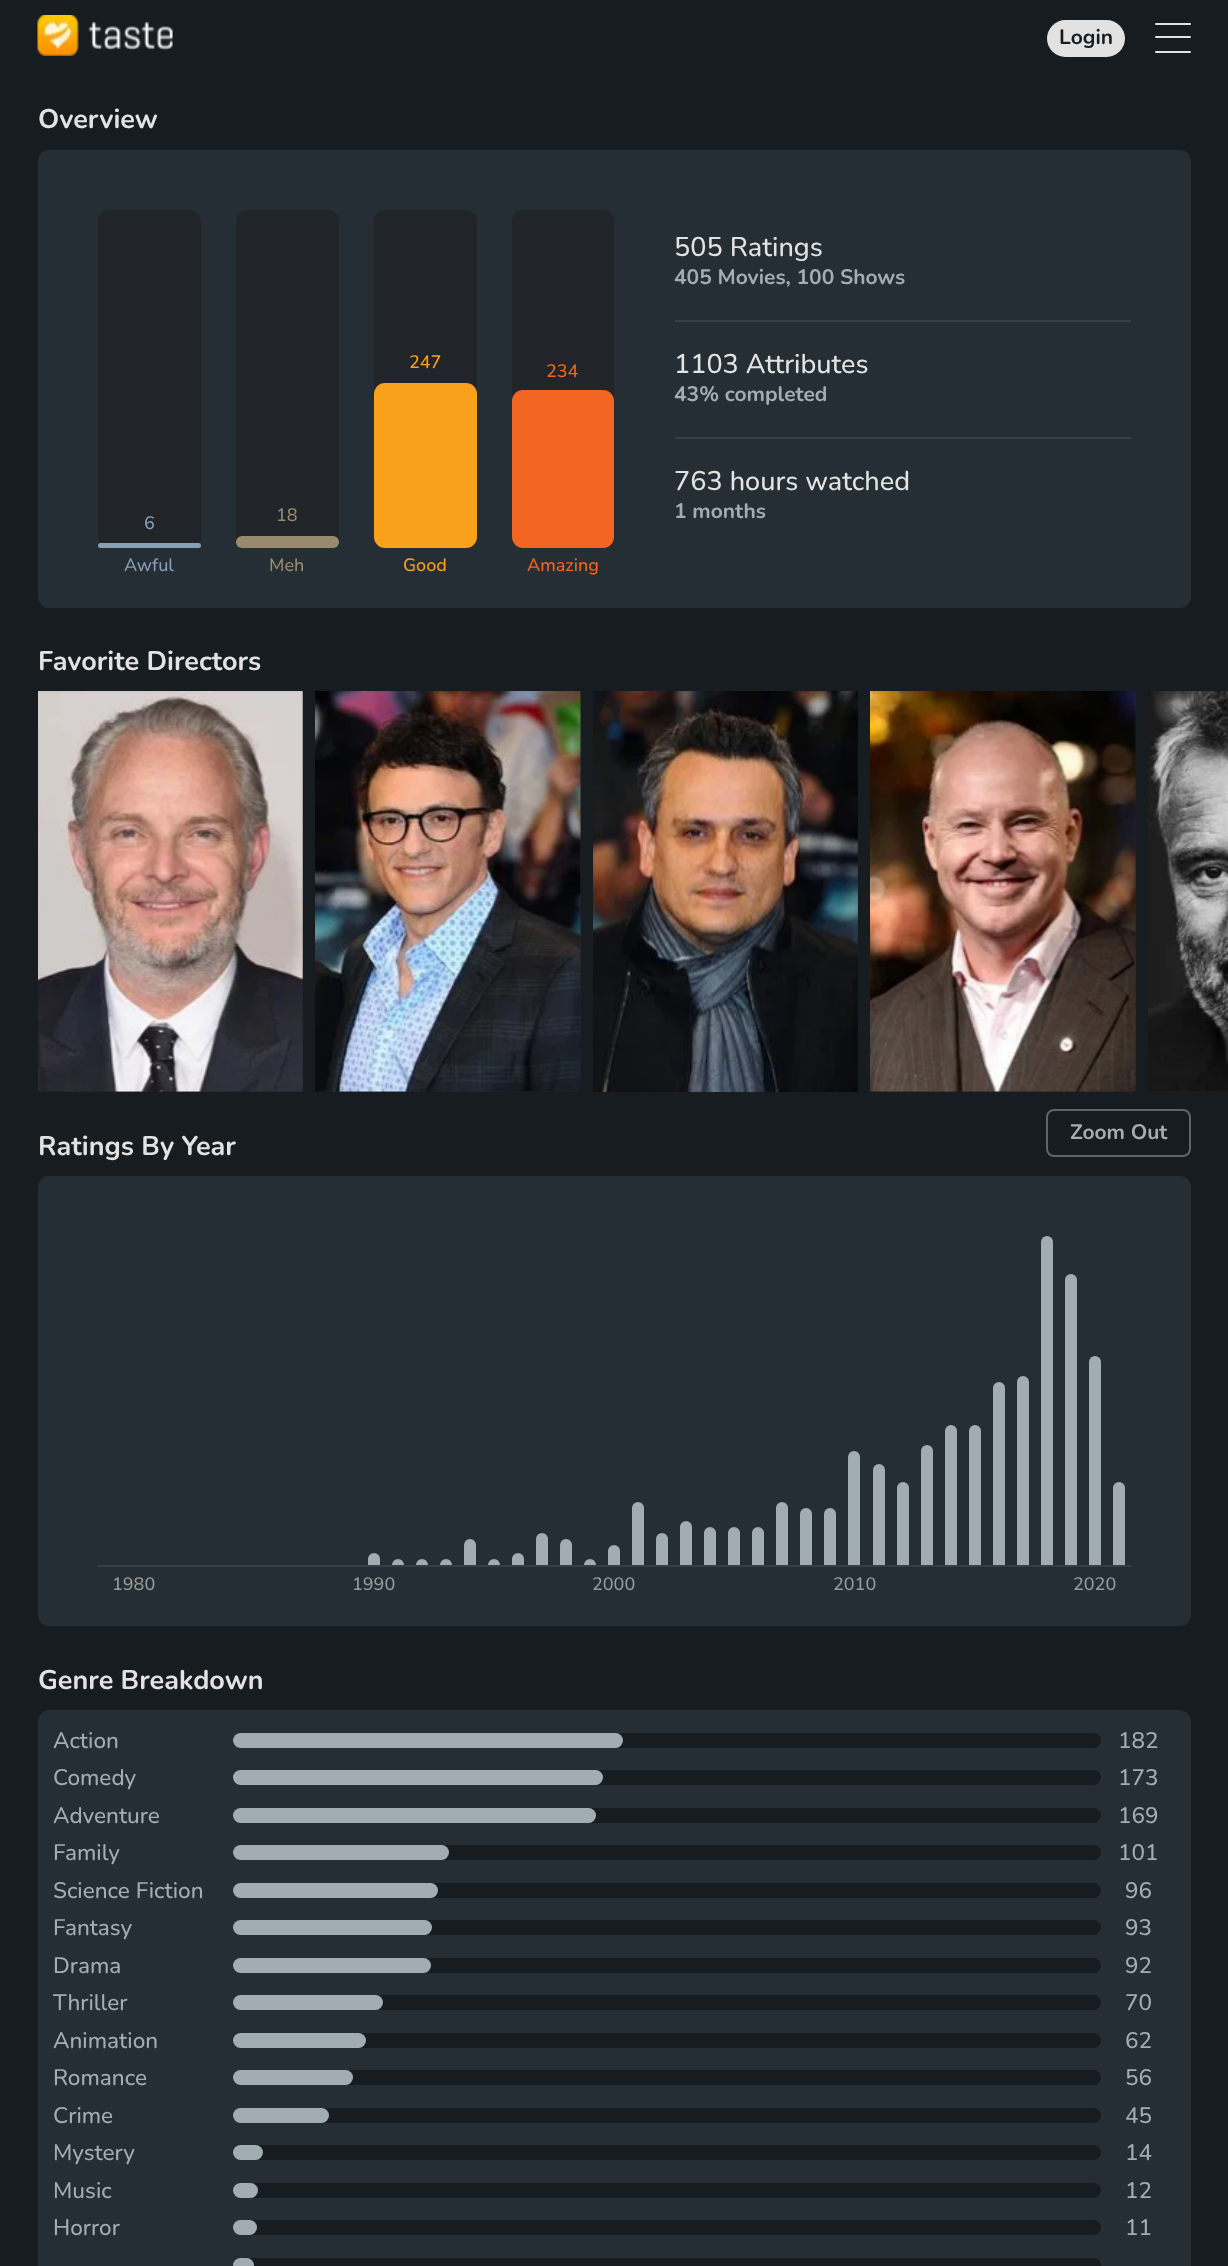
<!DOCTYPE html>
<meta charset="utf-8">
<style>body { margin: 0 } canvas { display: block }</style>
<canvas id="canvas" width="1228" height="2266"></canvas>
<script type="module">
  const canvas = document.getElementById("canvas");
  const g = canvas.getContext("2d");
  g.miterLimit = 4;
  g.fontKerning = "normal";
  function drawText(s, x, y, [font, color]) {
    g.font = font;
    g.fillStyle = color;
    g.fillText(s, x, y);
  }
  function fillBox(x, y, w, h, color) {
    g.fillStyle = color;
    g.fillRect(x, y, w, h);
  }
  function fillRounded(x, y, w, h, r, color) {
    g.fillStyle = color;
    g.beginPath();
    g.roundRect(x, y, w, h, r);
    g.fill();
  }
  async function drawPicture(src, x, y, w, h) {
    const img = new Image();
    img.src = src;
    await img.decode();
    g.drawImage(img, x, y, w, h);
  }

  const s1 = ["bold 21px Nunito", "#171C21"];
  const s2 = ["bold 27px Nunito", "#E2E2E2"];
  const s3 = ["500 18px Nunito", "#869FB4"];
  const s4 = ["500 18px Nunito", "#99896D"];
  const s5 = ["500 18px Nunito", "#F9A11B"];
  const s6 = ["500 18px Nunito", "#F26522"];
  const s7 = ["500 27px Nunito", "#E2E2E2"];
  const s8 = ["bold 21px Nunito", "#A2ADB3"];
  const s9 = ["500 18px Nunito", "#999999"];
  const s10 = ["500 22.5px Nunito", "#A2ADB3"];

  fillBox(0, 0, 1228, 2266, "#171C21");
  await drawPicture("pic1.png", 37, 15, 136, 41);
  fillRounded(1047, 20, 78, 37, 18.5, "#E2E2E2");
  drawText("Login", 1059, 44, s1);
  fillRounded(1155, 23, 36, 2, 1, "#E2E2E2");
  fillRounded(1155, 36, 36, 2, 1, "#E2E2E2");
  fillRounded(1155, 51, 36, 2, 1, "#E2E2E2");
  drawText("Overview", 38, 128, s2);
  fillRounded(38, 150, 1153, 458, 11, "#252E34");
  fillRounded(98, 210, 103, 338, 11, "#21252A");
  fillRounded(98, 543, 103, 5, 2.5, "#869FB4");
  drawText("6", 144, 529, s3);
  drawText("Awful", 124, 571, s3);
  fillRounded(236, 210, 103, 338, 11, "#21252A");
  fillRounded(236, 536, 103, 12, 6, "#99896D");
  drawText("18", 276, 521, s4);
  drawText("Meh", 269, 571, s4);
  fillRounded(374, 210, 103, 338, 11, "#21252A");
  fillRounded(374, 383, 103, 165, 11, "#F9A11B");
  drawText("247", 409, 368, s5);
  drawText("Good", 403, 571, s5);
  fillRounded(512, 210, 102, 338, 11, "#21252A");
  fillRounded(512, 390, 102, 158, 11, "#F26522");
  drawText("234", 546, 377, s6);
  drawText("Amazing", 527, 571, s6);
  fillBox(675, 320, 456, 2, "#383E43");
  drawText("505 Ratings", 674, 256, s7);
  drawText("405 Movies, 100 Shows", 674, 284, s8);
  fillBox(675, 437, 456, 2, "#383E43");
  drawText("1103 Attributes", 674, 373, s7);
  drawText("43% completed", 674, 401, s8);
  drawText("763 hours watched", 674, 490, s7);
  drawText("1 months", 674, 518, s8);
  drawText("Favorite Directors", 38, 670, s2);
  g.beginPath();
  g.roundRect(39, 693, 263, 398, 7);
  g.strokeStyle = "#21252A";
  g.lineWidth = 2;
  g.stroke();
  await drawPicture("pic2.png", 38, 691, 265, 401);
  g.beginPath();
  g.roundRect(316, 693, 264, 398, 7);
  g.stroke();
  await drawPicture("pic3.png", 315, 691, 266, 401);
  g.beginPath();
  g.roundRect(594, 693, 263, 398, 7);
  g.stroke();
  await drawPicture("pic4.png", 593, 691, 265, 401);
  g.beginPath();
  g.roundRect(871, 693, 264, 398, 7);
  g.stroke();
  await drawPicture("pic5.png", 870, 691, 266, 401);
  g.beginPath();
  g.roundRect(1149, 693, 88, 398, 7);
  g.stroke();
  await drawPicture("pic6.png", 1148, 691, 80, 401);
  fillRounded(38, 1176, 1153, 450, 11, "#252E34");
  g.beginPath();
  g.roundRect(1047, 1110, 143, 46, 7);
  g.strokeStyle = "#5D656A";
  g.stroke();
  drawText("Zoom Out", 1070, 1139, s8);
  fillBox(98, 1565, 1033, 2, "#383E43");
  g.fillStyle = "#A2ADB3";
  g.beginPath();
  g.roundRect(392, 1559, 12, 6, [6, 6, 0, 0]);
  g.fill();
  g.beginPath();
  g.roundRect(416, 1559, 12, 6, [6, 6, 0, 0]);
  g.fill();
  g.beginPath();
  g.roundRect(440, 1559, 12, 6, [6, 6, 0, 0]);
  g.fill();
  g.beginPath();
  g.roundRect(464, 1539, 12, 26, [6, 6, 0, 0]);
  g.fill();
  g.beginPath();
  g.roundRect(488, 1559, 12, 6, [6, 6, 0, 0]);
  g.fill();
  g.beginPath();
  g.roundRect(512, 1553, 12, 12, [6, 6, 0, 0]);
  g.fill();
  g.beginPath();
  g.roundRect(536, 1533, 12, 32, [6, 6, 0, 0]);
  g.fill();
  g.beginPath();
  g.roundRect(560, 1539, 12, 26, [6, 6, 0, 0]);
  g.fill();
  g.beginPath();
  g.roundRect(584, 1559, 12, 6, [6, 6, 0, 0]);
  g.fill();
  g.beginPath();
  g.roundRect(632, 1502, 12, 63, [6, 6, 0, 0]);
  g.fill();
  g.beginPath();
  g.roundRect(656, 1533, 12, 32, [6, 6, 0, 0]);
  g.fill();
  g.beginPath();
  g.roundRect(680, 1521, 12, 44, [6, 6, 0, 0]);
  g.fill();
  g.beginPath();
  g.roundRect(704, 1527, 12, 38, [6, 6, 0, 0]);
  g.fill();
  g.beginPath();
  g.roundRect(728, 1527, 12, 38, [6, 6, 0, 0]);
  g.fill();
  g.beginPath();
  g.roundRect(752, 1527, 12, 38, [6, 6, 0, 0]);
  g.fill();
  g.beginPath();
  g.roundRect(776, 1502, 12, 63, [6, 6, 0, 0]);
  g.fill();
  g.beginPath();
  g.roundRect(800, 1508, 12, 57, [6, 6, 0, 0]);
  g.fill();
  g.beginPath();
  g.roundRect(824, 1508, 12, 57, [6, 6, 0, 0]);
  g.fill();
  g.beginPath();
  g.roundRect(873, 1464, 12, 101, [6, 6, 0, 0]);
  g.fill();
  g.beginPath();
  g.roundRect(897, 1482, 12, 83, [6, 6, 0, 0]);
  g.fill();
  g.beginPath();
  g.roundRect(921, 1445, 12, 120, [6, 6, 0, 0]);
  g.fill();
  g.beginPath();
  g.roundRect(945, 1425, 12, 140, [6, 6, 0, 0]);
  g.fill();
  g.beginPath();
  g.roundRect(969, 1425, 12, 140, [6, 6, 0, 0]);
  g.fill();
  g.beginPath();
  g.roundRect(993, 1382, 12, 183, [6, 6, 0, 0]);
  g.fill();
  g.beginPath();
  g.roundRect(1017, 1376, 12, 189, [6, 6, 0, 0]);
  g.fill();
  g.beginPath();
  g.roundRect(1041, 1236, 12, 329, [6, 6, 0, 0]);
  g.fill();
  g.beginPath();
  g.roundRect(1065, 1274, 12, 291, [6, 6, 0, 0]);
  g.fill();
  g.beginPath();
  g.roundRect(1113, 1482, 12, 83, [6, 6, 0, 0]);
  g.fill();
  drawText("1980", 112, 1590, s9);
  g.fillStyle = "#A2ADB3";
  g.beginPath();
  g.roundRect(368, 1553, 12, 12, [6, 6, 0, 0]);
  g.fill();
  drawText("1990", 352, 1590, s9);
  g.fillStyle = "#A2ADB3";
  g.beginPath();
  g.roundRect(608, 1545, 12, 20, [6, 6, 0, 0]);
  g.fill();
  drawText("2000", 592, 1590, s9);
  g.fillStyle = "#A2ADB3";
  g.beginPath();
  g.roundRect(848, 1451, 12, 114, [6, 6, 0, 0]);
  g.fill();
  drawText("2010", 833, 1590, s9);
  g.fillStyle = "#A2ADB3";
  g.beginPath();
  g.roundRect(1089, 1356, 12, 209, [6, 6, 0, 0]);
  g.fill();
  drawText("2020", 1073, 1590, s9);
  drawText("Ratings By Year", 38, 1155, s2);
  drawText("Genre Breakdown", 38, 1689, s2);
  fillRounded(38, 1710, 1153, 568, 12, "#252E34");
  drawText("Action", 53, 1748, s10);
  fillRounded(233, 1733, 868, 15, 7.5, "#171C21");
  fillRounded(233, 1733, 390, 15, 7.5, "#A2ADB3");
  drawText("182", 1118, 1748, s10);
  drawText("Comedy", 53, 1785, s10);
  fillRounded(233, 1770, 868, 15, 7.5, "#171C21");
  fillRounded(233, 1770, 370, 15, 7.5, "#A2ADB3");
  drawText("173", 1118, 1785, s10);
  drawText("Adventure", 53, 1823, s10);
  fillRounded(233, 1808, 868, 15, 7.5, "#171C21");
  fillRounded(233, 1808, 363, 15, 7.5, "#A2ADB3");
  drawText("169", 1118, 1823, s10);
  drawText("Family", 53, 1860, s10);
  fillRounded(233, 1845, 868, 15, 7.5, "#171C21");
  fillRounded(233, 1845, 216, 15, 7.5, "#A2ADB3");
  drawText("101", 1118, 1860, s10);
  drawText("Science Fiction", 53, 1898, s10);
  fillRounded(233, 1883, 868, 15, 7.5, "#171C21");
  fillRounded(233, 1883, 205, 15, 7.5, "#A2ADB3");
  drawText("96", 1125, 1898, s10);
  drawText("Fantasy", 53, 1935, s10);
  fillRounded(233, 1920, 868, 15, 7.5, "#171C21");
  fillRounded(233, 1920, 199, 15, 7.5, "#A2ADB3");
  drawText("93", 1125, 1935, s10);
  drawText("Drama", 53, 1973, s10);
  fillRounded(233, 1958, 868, 15, 7.5, "#171C21");
  fillRounded(233, 1958, 198, 15, 7.5, "#A2ADB3");
  drawText("92", 1125, 1973, s10);
  drawText("Thriller", 53, 2010, s10);
  fillRounded(233, 1995, 868, 15, 7.5, "#171C21");
  fillRounded(233, 1995, 150, 15, 7.5, "#A2ADB3");
  drawText("70", 1125, 2010, s10);
  drawText("Animation", 53, 2048, s10);
  fillRounded(233, 2033, 868, 15, 7.5, "#171C21");
  fillRounded(233, 2033, 133, 15, 7.5, "#A2ADB3");
  drawText("62", 1125, 2048, s10);
  drawText("Romance", 53, 2085, s10);
  fillRounded(233, 2070, 868, 15, 7.5, "#171C21");
  fillRounded(233, 2070, 120, 15, 7.5, "#A2ADB3");
  drawText("56", 1125, 2085, s10);
  drawText("Crime", 53, 2123, s10);
  fillRounded(233, 2108, 868, 15, 7.5, "#171C21");
  fillRounded(233, 2108, 96, 15, 7.5, "#A2ADB3");
  drawText("45", 1125, 2123, s10);
  drawText("Mystery", 53, 2160, s10);
  fillRounded(233, 2145, 868, 15, 7.5, "#171C21");
  fillRounded(233, 2145, 30, 15, 7.5, "#A2ADB3");
  drawText("14", 1125, 2160, s10);
  drawText("Music", 53, 2198, s10);
  fillRounded(233, 2183, 868, 15, 7.5, "#171C21");
  fillRounded(233, 2183, 25, 15, 7.5, "#A2ADB3");
  drawText("12", 1125, 2198, s10);
  drawText("Horror", 53, 2235, s10);
  fillRounded(233, 2220, 868, 15, 7.5, "#171C21");
  fillRounded(233, 2220, 24, 15, 7.5, "#A2ADB3");
  drawText("11", 1125, 2235, s10);
  fillRounded(233, 2258, 868, 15, 7.5, "#171C21");
  fillRounded(233, 2258, 21, 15, 7.5, "#A2ADB3");
</script>
